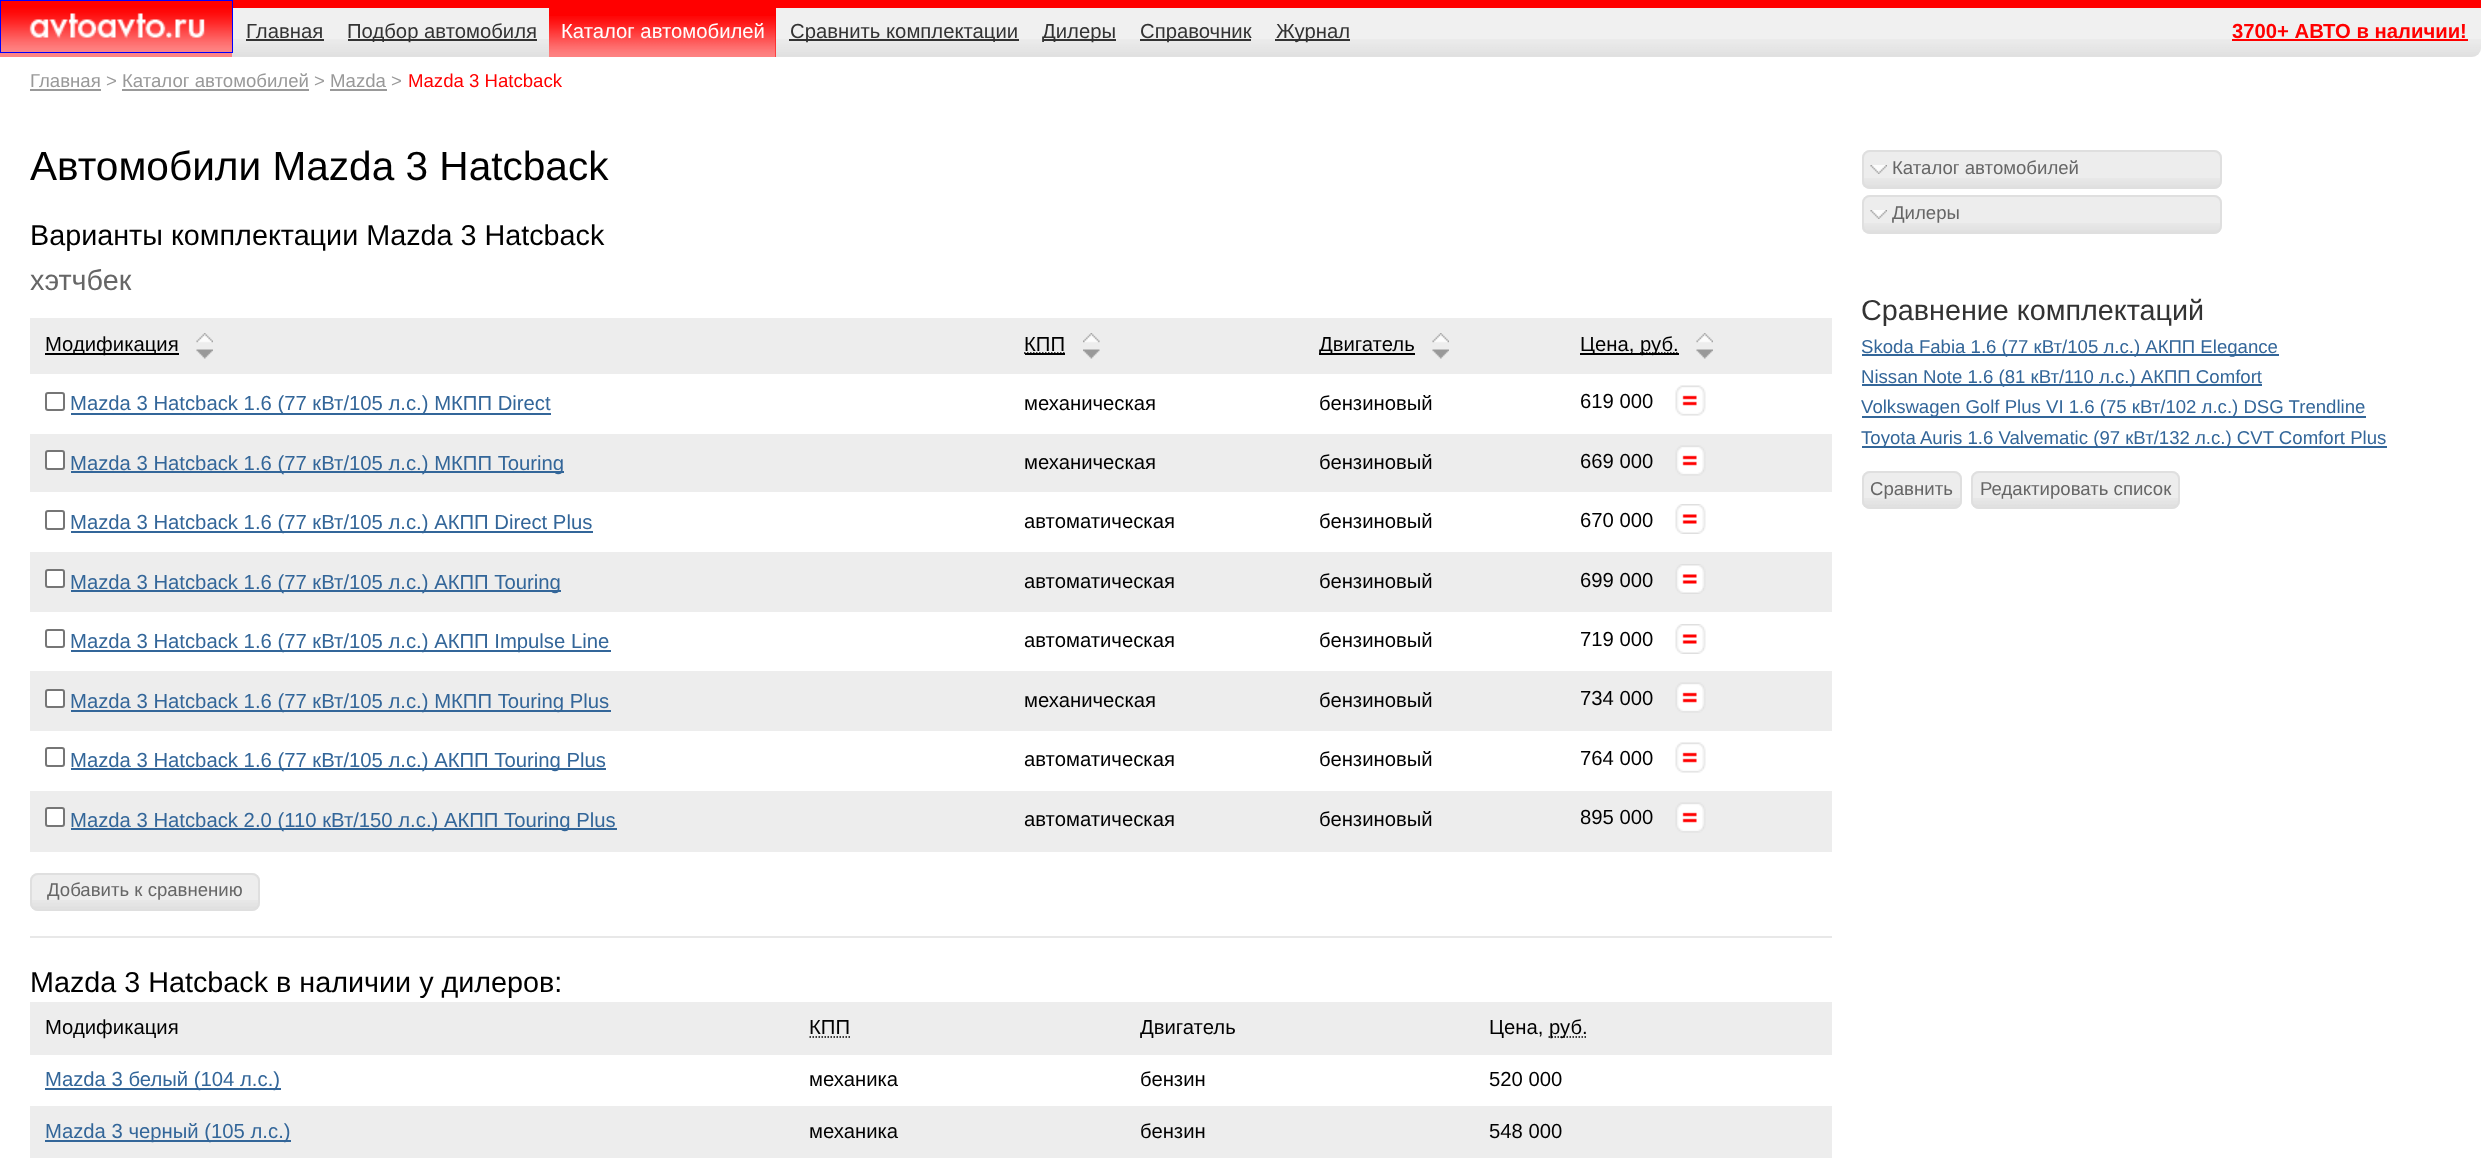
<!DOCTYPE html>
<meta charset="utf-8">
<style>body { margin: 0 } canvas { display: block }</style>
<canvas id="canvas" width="2481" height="1173"></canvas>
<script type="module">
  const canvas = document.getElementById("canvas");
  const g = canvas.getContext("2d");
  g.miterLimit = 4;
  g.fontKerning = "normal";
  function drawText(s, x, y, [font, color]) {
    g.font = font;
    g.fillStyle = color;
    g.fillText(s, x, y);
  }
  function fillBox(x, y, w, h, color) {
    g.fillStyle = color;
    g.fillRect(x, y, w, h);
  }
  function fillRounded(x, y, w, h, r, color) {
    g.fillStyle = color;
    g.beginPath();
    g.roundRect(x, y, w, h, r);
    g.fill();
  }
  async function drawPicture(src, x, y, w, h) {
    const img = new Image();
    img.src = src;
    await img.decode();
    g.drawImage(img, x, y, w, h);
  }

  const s1 = ["20.3px Liberation Sans", "#333333"];
  const s2 = ["20.3px Liberation Sans", "#FFFFFF"];
  const s3 = ["bold 20.3px Liberation Sans", "#FF0000"];
  const s4 = ["18.6px Liberation Sans", "#999999"];
  const s5 = ["18.6px Liberation Sans", "#FF0000"];
  const s6 = ["40.6px Liberation Sans", "#000000"];
  const s7 = ["28.75px Liberation Sans", "#000000"];
  const s8 = ["28.75px Liberation Sans", "#666666"];
  const s9 = ["20.3px Liberation Sans", "#000000"];
  const s10 = ["20.3px Liberation Sans", "#336699"];
  const s11 = ["18.6px Liberation Sans", "#666666"];
  const s12 = ["28.75px Liberation Sans", "#333333"];
  const s13 = ["18.6px Liberation Sans", "#336699"];

  fillBox(0, 0, 2481, 1173, "#FFFFFF");
  g.fillStyle = "#F0F0F0";
  g.beginPath();
  g.roundRect(0, 0, 2481, 57, [0, 0, 9, 0]);
  g.fill();
  g.fillStyle = "#FF0000";
  g.beginPath();
  g.moveTo(0, 0);
  g.lineTo(2481, 0);
  g.lineTo(2481, 8);
  g.lineTo(232, 8);
  g.closePath();
  g.fill();
  g.fillStyle = "#FD8484";
  g.beginPath();
  g.moveTo(0, 57);
  g.lineTo(0, 0);
  g.lineTo(232, 8);
  g.lineTo(232, 57);
  g.closePath();
  g.fill();
  await drawPicture("pic1.png", 1, 1, 231, 51);
  await drawPicture("pic2.png", 232, 39, 2249, 18);
  g.save();
  g.beginPath();
  g.rect(0, 0, 233, 53);
  g.clip();
  g.strokeStyle = "#0000FF";
  g.lineWidth = 2;
  g.strokeRect(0, 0, 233, 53);
  g.restore();
  drawText("Главная", 246, 38, s1);
  fillBox(246, 39, 78, 2, "#333333");
  fillBox(348, 39, 189, 2, "#333333");
  drawText("Подбор автомобиля", 347, 38, s1);
  fillBox(549, 8, 227, 49, "#FF0000");
  await drawPicture("pic3.png", 549, 16, 227, 41);
  drawText("Каталог автомобилей", 561, 38, s2);
  fillBox(789, 39, 230, 2, "#333333");
  drawText("Сравнить комплектации", 790, 38, s1);
  fillBox(1043, 39, 73, 2, "#333333");
  drawText("Дилеры", 1042, 38, s1);
  fillBox(1140, 39, 111, 2, "#333333");
  drawText("Справочник", 1140, 38, s1);
  fillBox(1275, 39, 75, 2, "#333333");
  drawText("Журнал", 1276, 38, s1);
  drawText("3700+ АВТО в наличии!", 2232, 38, s3);
  fillBox(2232, 39, 236, 2, "#FF0000");
  drawText("Главная > Каталог автомобилей > Mazda >", 30, 87, s4);
  fillBox(30, 89, 71, 2, "#999999");
  drawText("Mazda 3 Hatcback", 408, 87, s5);
  fillBox(122, 89, 187, 2, "#999999");
  fillBox(330, 89, 57, 2, "#999999");
  drawText("Автомобили Mazda 3 Hatcback", 30, 180, s6);
  drawText("Варианты комплектации Mazda 3 Hatcback", 30, 245, s7);
  drawText("хэтчбек", 30, 290, s8);
  fillBox(30, 791, 1802, 61, "#EDEDED");
  fillBox(30, 318, 1802, 56, "#EDEDED");
  await drawPicture("pic4.png", 196, 333, 17, 26);
  fillBox(45, 353, 134, 2, "#000000");
  drawText("Модификация", 45, 351, s9);
  await drawPicture("pic5.png", 1083, 333, 17, 26);
  drawText("КПП", 1024, 351, s9);
  g.beginPath();
  g.moveTo(1024, 353);
  g.lineTo(1065, 353);
  g.strokeStyle = "#000000";
  g.lineWidth = 1.5;
  g.setLineDash([1.5, 1.5]);
  g.stroke();
  fillBox(1025, 353, 40, 2, "#000000");
  await drawPicture("pic6.png", 1432, 333, 17, 26);
  fillBox(1319, 353, 96, 2, "#000000");
  drawText("Двигатель", 1319, 351, s9);
  await drawPicture("pic4.png", 1696, 333, 17, 26);
  fillBox(1580, 353, 60, 2, "#000000");
  drawText("Цена,", 1580, 351, s9);
  g.beginPath();
  g.moveTo(1640, 353);
  g.lineTo(1678.5, 353);
  g.stroke();
  fillBox(1640, 353, 39, 2, "#000000");
  drawText("руб.", 1640, 351, s9);
  g.beginPath();
  g.roundRect(46, 393, 18, 17, 2);
  g.strokeStyle = "#767676";
  g.lineWidth = 2;
  g.setLineDash([]);
  g.stroke();
  fillBox(71, 413, 480, 2, "#336699");
  drawText("Mazda 3 Hatcback 1.6 (77 кВт/105 л.с.) МКПП Direct", 70, 410, s10);
  drawText("механическая", 1024, 410, s9);
  drawText("бензиновый", 1319, 410, s9);
  drawText("619 000", 1580, 408, s9);
  await drawPicture("pic7.png", 1675, 385, 31, 31);
  fillBox(30, 434, 1802, 58, "#EDEDED");
  g.fillStyle = "#FFFFFF";
  g.beginPath();
  g.roundRect(46, 451, 18, 18, 2);
  g.fill();
  g.stroke();
  fillBox(71, 471, 493, 2, "#336699");
  drawText("Mazda 3 Hatcback 1.6 (77 кВт/105 л.с.) МКПП Touring", 70, 470, s10);
  drawText("механическая", 1024, 469, s9);
  drawText("бензиновый", 1319, 469, s9);
  drawText("669 000", 1580, 468, s9);
  await drawPicture("pic8.png", 1675, 445, 31, 31);
  g.beginPath();
  g.roundRect(46, 511, 18, 18, 2);
  g.stroke();
  fillBox(71, 531, 522, 2, "#336699");
  drawText("Mazda 3 Hatcback 1.6 (77 кВт/105 л.с.) АКПП Direct Plus", 70, 529, s10);
  drawText("автоматическая", 1024, 528, s9);
  drawText("бензиновый", 1319, 528, s9);
  drawText("670 000", 1580, 527, s9);
  await drawPicture("pic9.png", 1675, 504, 31, 30);
  fillBox(30, 552, 1802, 60, "#EDEDED");
  g.fillStyle = "#FFFFFF";
  g.beginPath();
  g.roundRect(46, 570, 18, 17, 2);
  g.fill();
  g.stroke();
  fillBox(71, 590, 490, 2, "#336699");
  drawText("Mazda 3 Hatcback 1.6 (77 кВт/105 л.с.) АКПП Touring", 70, 589, s10);
  drawText("автоматическая", 1024, 588, s9);
  drawText("бензиновый", 1319, 588, s9);
  drawText("699 000", 1580, 587, s9);
  await drawPicture("pic10.png", 1675, 564, 31, 30);
  g.beginPath();
  g.roundRect(46, 630, 18, 17, 2);
  g.stroke();
  fillBox(71, 650, 540, 2, "#336699");
  drawText("Mazda 3 Hatcback 1.6 (77 кВт/105 л.с.) АКПП Impulse Line", 70, 648, s10);
  drawText("автоматическая", 1024, 647, s9);
  drawText("бензиновый", 1319, 647, s9);
  drawText("719 000", 1580, 646, s9);
  await drawPicture("pic9.png", 1675, 624, 31, 30);
  fillBox(30, 671, 1802, 60, "#EDEDED");
  g.fillStyle = "#FFFFFF";
  g.beginPath();
  g.roundRect(46, 690, 18, 17, 2);
  g.fill();
  g.stroke();
  fillBox(71, 710, 540, 2, "#336699");
  drawText("Mazda 3 Hatcback 1.6 (77 кВт/105 л.с.) МКПП Touring Plus", 70, 708, s10);
  drawText("механическая", 1024, 707, s9);
  drawText("бензиновый", 1319, 707, s9);
  drawText("734 000", 1580, 705, s9);
  await drawPicture("pic8.png", 1675, 682, 31, 31);
  g.beginPath();
  g.roundRect(46, 748, 18, 18, 2);
  g.stroke();
  fillBox(71, 768, 535, 2, "#336699");
  drawText("Mazda 3 Hatcback 1.6 (77 кВт/105 л.с.) АКПП Touring Plus", 70, 767, s10);
  drawText("автоматическая", 1024, 766, s9);
  drawText("бензиновый", 1319, 766, s9);
  drawText("764 000", 1580, 765, s9);
  await drawPicture("pic7.png", 1675, 742, 31, 31);
  g.fillStyle = "#FFFFFF";
  g.beginPath();
  g.roundRect(46, 808, 18, 18, 2);
  g.fill();
  g.stroke();
  fillBox(71, 828, 546, 2, "#336699");
  drawText("Mazda 3 Hatcback 2.0 (110 кВт/150 л.с.) АКПП Touring Plus", 70, 827, s10);
  drawText("автоматическая", 1024, 826, s9);
  drawText("бензиновый", 1319, 826, s9);
  drawText("895 000", 1580, 824, s9);
  await drawPicture("pic8.png", 1675, 802, 31, 31);
  fillRounded(30, 873, 230, 38, 8, "#EDEDED");
  await drawPicture("pic11.png", 30, 900, 229, 9);
  g.beginPath();
  g.roundRect(31, 874, 228, 36, 7);
  g.strokeStyle = "#DFDFDF";
  g.stroke();
  drawText("Добавить к сравнению", 47, 896, s11);
  fillBox(30, 936, 1802, 2, "#E8E8E8");
  drawText("Mazda 3 Hatcback в наличии у дилеров:", 30, 992, s7);
  fillBox(30, 1002, 1802, 53, "#EDEDED");
  drawText("Модификация", 45, 1034, s9);
  drawText("КПП", 809, 1034, s9);
  g.beginPath();
  g.moveTo(809.5, 1037);
  g.lineTo(850.5, 1037);
  g.strokeStyle = "#000000";
  g.lineWidth = 1.5;
  g.setLineDash([1.5, 1.5]);
  g.stroke();
  drawText("Двигатель", 1140, 1034, s9);
  drawText("Цена,", 1489, 1034, s9);
  g.beginPath();
  g.moveTo(1548.5, 1037);
  g.lineTo(1587.5, 1037);
  g.stroke();
  drawText("руб.", 1549, 1034, s9);
  fillBox(45, 1088, 236, 2, "#336699");
  drawText("Mazda 3 белый (104 л.с.)", 45, 1086, s10);
  drawText("механика", 809, 1086, s9);
  drawText("бензин", 1140, 1086, s9);
  drawText("520 000", 1489, 1086, s9);
  fillBox(30, 1106, 1802, 52, "#EDEDED");
  fillBox(45, 1140, 246, 2, "#336699");
  drawText("Mazda 3 черный (105 л.с.)", 45, 1138, s10);
  drawText("механика", 809, 1138, s9);
  drawText("бензин", 1140, 1138, s9);
  drawText("548 000", 1489, 1138, s9);
  fillRounded(1862, 150, 360, 39, 8, "#EDEDED");
  await drawPicture("pic12.png", 1862, 178, 359, 10);
  g.beginPath();
  g.roundRect(1863, 151, 358, 37, 7);
  g.strokeStyle = "#DFDFDF";
  g.lineWidth = 2;
  g.setLineDash([]);
  g.stroke();
  await drawPicture("pic13.png", 1870, 165, 17, 9);
  drawText("Каталог автомобилей", 1892, 174, s11);
  fillRounded(1862, 195, 360, 39, 8, "#EDEDED");
  await drawPicture("pic12.png", 1862, 223, 359, 10);
  g.beginPath();
  g.roundRect(1863, 196, 358, 37, 7);
  g.stroke();
  await drawPicture("pic13.png", 1870, 210, 17, 9);
  drawText("Дилеры", 1892, 219, s11);
  drawText("Сравнение комплектаций", 1861, 320, s12);
  fillBox(1862, 354, 417, 2, "#336699");
  drawText("Skoda Fabia 1.6 (77 кВт/105 л.с.) АКПП Elegance", 1861, 353, s13);
  fillBox(1862, 384, 400, 2, "#336699");
  drawText("Nissan Note 1.6 (81 кВт/110 л.с.) АКПП Comfort", 1861, 383, s13);
  fillBox(1862, 416, 504, 2, "#336699");
  drawText("Volkswagen Golf Plus VI 1.6 (75 кВт/102 л.с.) DSG Trendline", 1861, 413, s13);
  fillBox(1862, 446, 525, 2, "#336699");
  drawText("Toyota Auris 1.6 Valvematic (97 кВт/132 л.с.) CVT Comfort Plus", 1861, 444, s13);
  fillRounded(1862, 471, 100, 38, 8, "#EDEDED");
  await drawPicture("pic14.png", 1862, 498, 100, 9);
  g.beginPath();
  g.roundRect(1863, 472, 98, 36, 7);
  g.stroke();
  drawText("Сравнить", 1870, 495, s11);
  fillRounded(1971, 471, 209, 38, 8, "#EDEDED");
  await drawPicture("pic15.png", 1971, 498, 208, 9);
  g.beginPath();
  g.roundRect(1972, 472, 207, 36, 7);
  g.stroke();
  drawText("Редактировать список", 1980, 495, s11);
</script>
